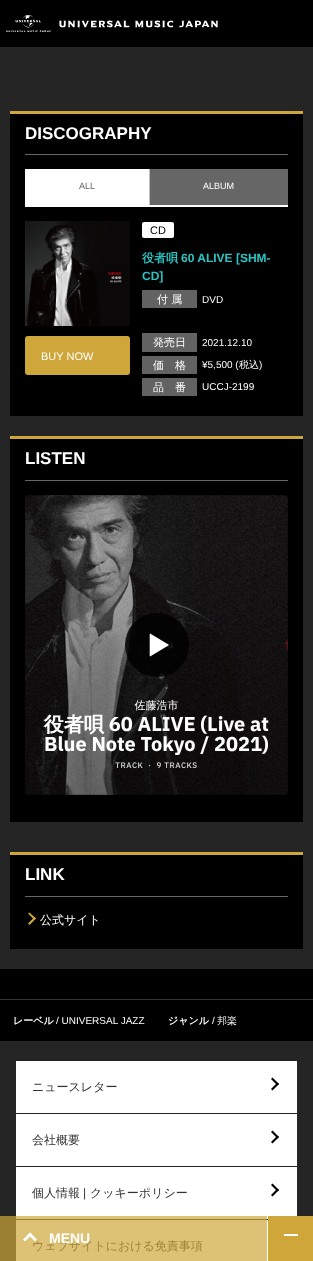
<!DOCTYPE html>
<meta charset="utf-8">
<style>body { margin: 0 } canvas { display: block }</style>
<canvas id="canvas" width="313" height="1261"></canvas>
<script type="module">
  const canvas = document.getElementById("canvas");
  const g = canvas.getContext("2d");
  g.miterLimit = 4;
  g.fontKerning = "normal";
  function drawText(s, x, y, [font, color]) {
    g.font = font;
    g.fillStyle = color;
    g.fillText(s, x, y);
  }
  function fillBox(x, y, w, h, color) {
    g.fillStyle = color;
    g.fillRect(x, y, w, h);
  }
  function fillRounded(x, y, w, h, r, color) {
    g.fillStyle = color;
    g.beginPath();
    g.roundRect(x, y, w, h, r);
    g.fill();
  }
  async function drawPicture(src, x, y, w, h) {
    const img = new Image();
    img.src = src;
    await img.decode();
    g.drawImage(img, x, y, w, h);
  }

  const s1 = ["bold 17px Liberation Sans", "#FFFFFF"];
  const s2 = ["9px Liberation Sans", "#666666"];
  const s3 = ["9px Liberation Sans", "#FFFFFF"];
  const s4 = ["11px Liberation Sans", "#FFFFFF"];
  const s5 = ["11px Liberation Sans", "#000000"];
  const s6 = ["bold 12px WenQuanYi Zen Hei", "#29C5C5"];
  const s7 = ["bold 12px Liberation Sans", "#29C5C5"];
  const s8 = ["500 11px WenQuanYi Zen Hei", "#FFFFFF"];
  const s9 = ["10px Liberation Sans", "#FFFFFF"];
  const s10 = ["500 10px WenQuanYi Zen Hei", "#FFFFFF"];
  const s11 = ["500 12px WenQuanYi Zen Hei", "#FFFFFF"];
  const s12 = ["bold 10px WenQuanYi Zen Hei", "#FFFFFF"];
  const s13 = ["500 12px WenQuanYi Zen Hei", "#333333"];
  const s14 = ["12px Liberation Sans", "#333333"];
  const s15 = ["500 12px WenQuanYi Zen Hei", "#A08437"];
  const s16 = ["bold 14px Liberation Sans", "#FFFFFF"];

  fillBox(0, 0, 313, 1261, "#252525");
  fillBox(0, 0, 313, 47, "#000000");
  await drawPicture("pic1.png", 6, 15, 212, 17);
  fillBox(0, 1216, 267, 45, "#9B7F33");
  fillBox(10, 111, 293, 3, "#CEA639");
  fillBox(10, 114, 293, 302, "#000000");
  fillBox(25, 154, 263, 1, "#666666");
  drawText("DISCOGRAPHY", 25, 139, s1);
  fillBox(25, 205, 263, 2, "#FFFFFF");
  fillBox(25, 169, 124, 36, "#FFFFFF");
  drawText("ALL", 79, 189, s2);
  fillBox(149, 169, 1, 36, "#BFBFBF");
  fillBox(150, 169, 138, 36, "#666666");
  drawText("ALBUM", 203, 189, s3);
  await drawPicture("pic2.png", 25, 221, 105, 105);
  fillRounded(25, 336, 105, 39, 3, "#CEA639");
  drawText("BUY NOW", 41, 360, s4);
  fillRounded(142, 222, 32, 16, 2, "#FFFFFF");
  drawText("CD", 150, 234, s5);
  drawText("役者唄", 142, 262, s6);
  drawText("60 ALIVE [SHM-", 181, 262, s7);
  drawText("CD]", 142, 280, s7);
  fillBox(142, 290, 55, 18, "#626262");
  drawText("付 属", 157, 303, s8);
  drawText("DVD", 202, 303, s9);
  fillBox(142, 333, 55, 19, "#626262");
  drawText("発売日", 153, 346, s8);
  drawText("2021.12.10", 202, 346, s9);
  fillBox(142, 356, 55, 18, "#626262");
  drawText("価　格", 153, 369, s8);
  drawText("¥5,500 (", 202, 368, s9);
  drawText("税込", 239, 368, s10);
  drawText(")", 259, 368, s9);
  fillBox(142, 378, 55, 18, "#626262");
  drawText("品　番", 153, 391, s8);
  drawText("UCCJ-2199", 202, 390, s9);
  fillBox(10, 436, 293, 3, "#CEA639");
  fillBox(10, 439, 293, 383, "#000000");
  fillBox(25, 480, 263, 1, "#666666");
  drawText("LISTEN", 25, 464, s1);
  await drawPicture("pic3.png", 25, 495, 263, 300);
  fillBox(10, 852, 293, 3, "#CEA639");
  fillBox(10, 855, 293, 94, "#000000");
  fillBox(25, 896, 263, 1, "#666666");
  drawText("LINK", 25, 880, s1);
  g.fillStyle = "#CEA639";
  g.beginPath();
  g.moveTo(28, 913.5);
  g.lineTo(29.5, 912.5);
  g.lineTo(36, 918.5);
  g.lineTo(34.5, 920);
  g.closePath();
  g.fill();
  g.beginPath();
  g.moveTo(28, 923.5);
  g.lineTo(34.5, 917);
  g.lineTo(36, 918.5);
  g.lineTo(29.5, 925);
  g.closePath();
  g.fill();
  drawText("公式サイト", 40, 924, s11);
  fillBox(0, 969, 313, 72, "#000000");
  fillBox(0, 999, 313, 1, "#333333");
  drawText("レーベル", 13, 1024, s12);
  drawText("/ UNIVERSAL JAZZ", 56, 1024, s9);
  drawText("ジャンル", 168, 1024, s12);
  drawText("/", 212, 1024, s9);
  drawText("邦楽", 217, 1024, s10);
  fillBox(16, 1061, 281, 52, "#FFFFFF");
  drawText("ニュースレター", 32, 1091, s13);
  g.fillStyle = "#000000";
  g.beginPath();
  g.moveTo(271, 1079);
  g.lineTo(272.5, 1077.5);
  g.lineTo(279, 1084);
  g.lineTo(277.5, 1085.5);
  g.closePath();
  g.fill();
  g.beginPath();
  g.moveTo(271, 1089);
  g.lineTo(277.5, 1082.5);
  g.lineTo(279, 1084);
  g.lineTo(272.5, 1090.5);
  g.closePath();
  g.fill();
  fillBox(16, 1114, 281, 52, "#FFFFFF");
  drawText("会社概要", 32, 1144, s13);
  g.fillStyle = "#000000";
  g.beginPath();
  g.moveTo(271, 1132);
  g.lineTo(272.5, 1130.5);
  g.lineTo(279, 1137);
  g.lineTo(277.5, 1138.5);
  g.closePath();
  g.fill();
  g.beginPath();
  g.moveTo(271, 1142);
  g.lineTo(277.5, 1135.5);
  g.lineTo(279, 1137);
  g.lineTo(272.5, 1143.5);
  g.closePath();
  g.fill();
  fillBox(16, 1167, 281, 52, "#FFFFFF");
  fillBox(16, 1216, 251, 3, "#DDC174");
  drawText("個人情報", 32, 1197, s13);
  drawText("|", 83, 1197, s14);
  drawText("クッキーポリシー", 90, 1197, s13);
  g.fillStyle = "#000000";
  g.beginPath();
  g.moveTo(271, 1185);
  g.lineTo(272.5, 1183.5);
  g.lineTo(279, 1190);
  g.lineTo(277.5, 1191.5);
  g.closePath();
  g.fill();
  g.beginPath();
  g.moveTo(271, 1195);
  g.lineTo(277.5, 1188.5);
  g.lineTo(279, 1190);
  g.lineTo(272.5, 1196.5);
  g.closePath();
  g.fill();
  fillBox(267, 1220, 1, 41, "#FFFFFF");
  fillBox(16, 1220, 251, 41, "#DDC174");
  drawText("ウェブサイトにおける免責事項", 32, 1250, s15);
  g.fillStyle = "#FFFFFF";
  g.beginPath();
  g.moveTo(25, 1241.5);
  g.lineTo(23, 1239.5);
  g.lineTo(30, 1232.5);
  g.lineTo(32, 1234.5);
  g.closePath();
  g.fill();
  g.beginPath();
  g.moveTo(35, 1241.5);
  g.lineTo(28, 1234.5);
  g.lineTo(30, 1232.5);
  g.lineTo(37, 1239.5);
  g.closePath();
  g.fill();
  drawText("MENU", 49, 1243, s16);
  fillBox(268, 1216, 45, 45, "#CEA639");
  fillBox(284, 1234, 14, 2, "#FFFFFF");
</script>
